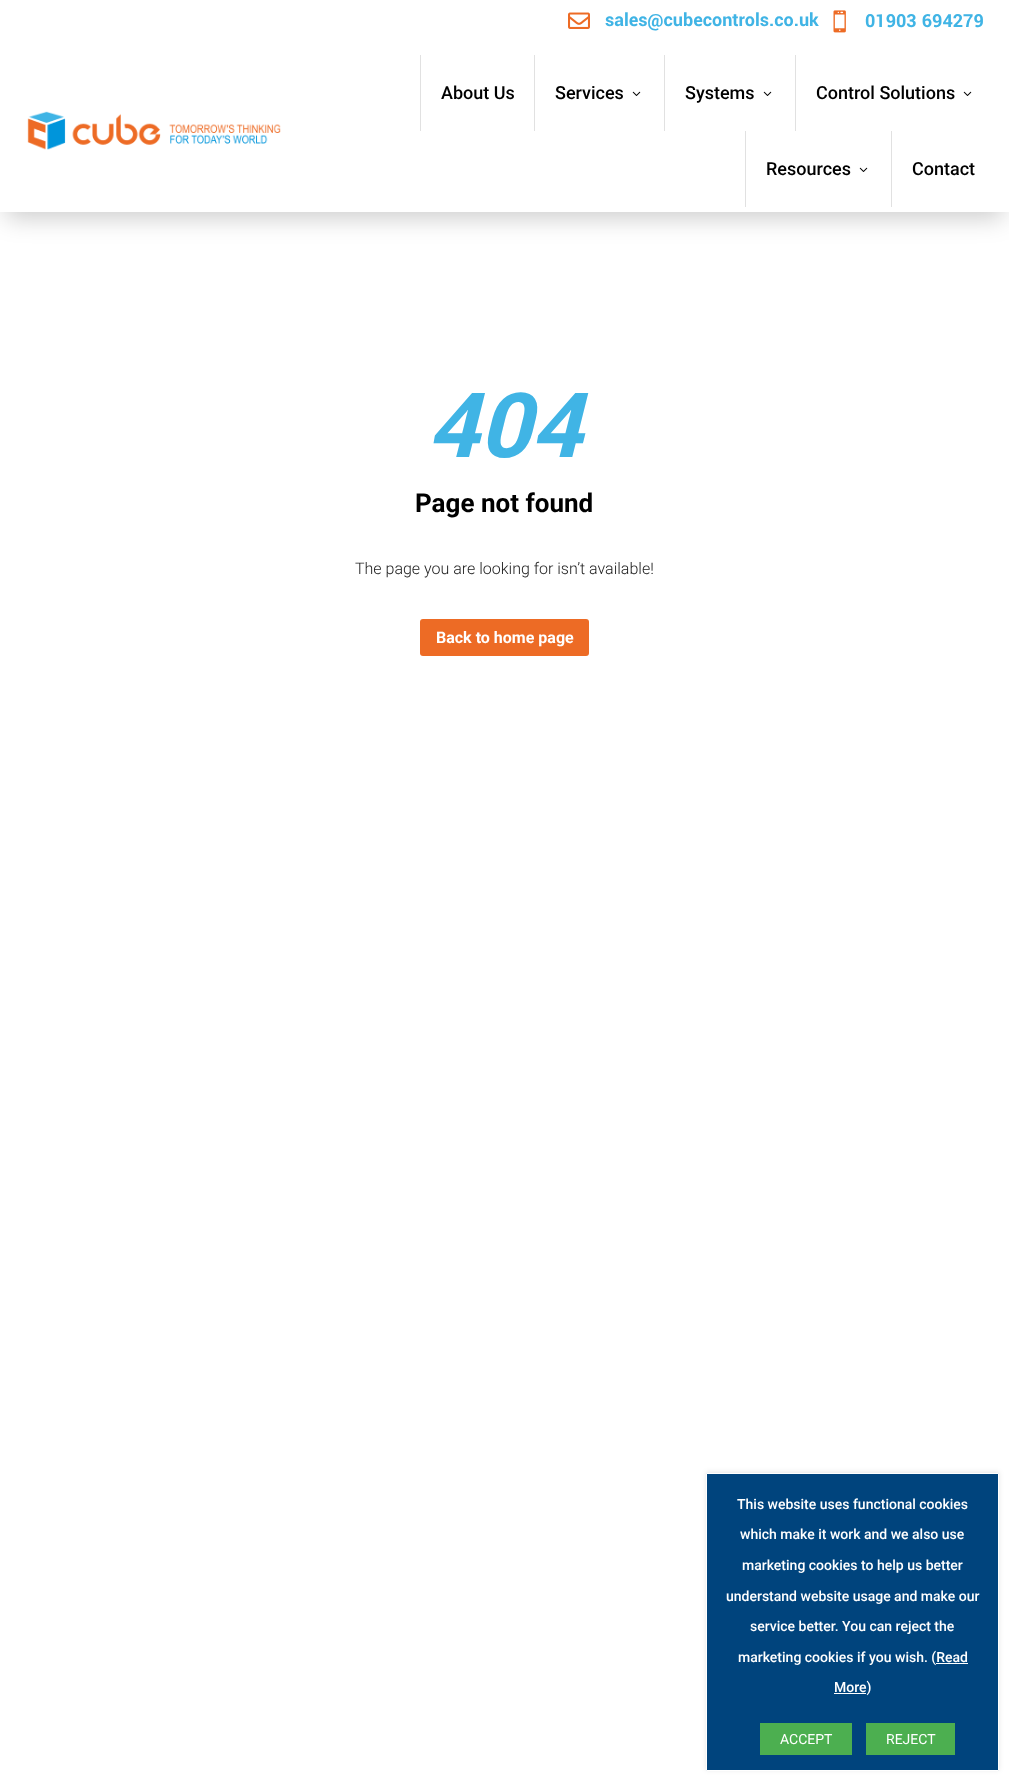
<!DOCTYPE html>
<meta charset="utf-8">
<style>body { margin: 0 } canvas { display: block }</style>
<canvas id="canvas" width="1009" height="1781"></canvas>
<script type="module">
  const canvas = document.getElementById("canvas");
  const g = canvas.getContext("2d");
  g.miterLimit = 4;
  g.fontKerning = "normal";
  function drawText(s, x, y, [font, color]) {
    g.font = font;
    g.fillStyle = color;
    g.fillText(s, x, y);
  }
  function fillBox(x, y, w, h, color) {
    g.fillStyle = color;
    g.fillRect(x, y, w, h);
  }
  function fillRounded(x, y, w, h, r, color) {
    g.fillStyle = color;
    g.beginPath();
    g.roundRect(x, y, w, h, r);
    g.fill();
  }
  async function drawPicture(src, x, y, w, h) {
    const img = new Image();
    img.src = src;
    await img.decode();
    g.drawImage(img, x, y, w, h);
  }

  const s1 = ["bold 20px Yantramanav", "#40B4E5"];
  const s2 = ["500 18px Roboto", "#000000"];
  const s3 = ["italic bold 100px Yantramanav", "#40B4E5"];
  const s4 = ["bold 26px Roboto", "#000000"];
  const s5 = ["300 16px Roboto", "#212121"];
  const s6 = ["bold 16px Roboto", "#FFFFFF"];
  const s7 = ["500 14px Roboto", "#FFFFFF"];
  const s8 = ["14px Roboto", "#FFFFFF"];

  fillBox(0, 0, 1009, 1781, "#FFFFFF");
  g.fillStyle = "rgba(0, 0, 0, 0.2)";
  g.filter = "blur(12.5px)";
  g.beginPath();
  g.rect(6, 18, 997, 200);
  g.fill();
  g.filter = "none";
  fillBox(0, 0, 1009, 212, "#FFFFFF");
  await drawPicture("pic1.png", 568, 12, 22, 17);
  drawText("sales@cubecontrols.co.uk", 605, 26, s1);
  await drawPicture("pic2.png", 833, 10, 13, 23);
  drawText("01903 694279", 865, 27, s1);
  await drawPicture("pic3.png", 27, 111, 254, 39);
  fillBox(420, 55, 1, 76, "#E1E1E1");
  drawText("About Us", 441, 99, s2);
  fillBox(534, 55, 1, 76, "#E1E1E1");
  drawText("Services", 555, 99, s2);
  await drawPicture("pic4.png", 632, 91, 9, 5);
  fillBox(664, 55, 1, 76, "#E1E1E1");
  drawText("Systems", 685, 99, s2);
  await drawPicture("pic4.png", 763, 91, 9, 5);
  fillBox(795, 55, 1, 76, "#E1E1E1");
  drawText("Control Solutions", 816, 99, s2);
  await drawPicture("pic4.png", 963, 91, 9, 5);
  fillBox(745, 131, 1, 76, "#E1E1E1");
  drawText("Resources", 766, 175, s2);
  await drawPicture("pic4.png", 859, 167, 9, 5);
  fillBox(891, 131, 1, 76, "#E1E1E1");
  drawText("Contact", 912, 175, s2);
  drawText("404", 427, 457, s3);
  drawText("Page not found", 415, 512, s4);
  drawText("The page you are looking for isn’t available!", 355, 574, s5);
  fillRounded(420, 619, 169, 37, 3, "#ED6B25");
  drawText("Back to home page", 436, 643, s6);
  g.fillStyle = "rgba(0, 0, 0, 0.1)";
  g.filter = "blur(2.5px)";
  g.beginPath();
  g.rect(706, 1472, 293, 298);
  g.fill();
  g.filter = "none";
  g.fillStyle = "#00447D";
  g.beginPath();
  g.rect(706.5, 1473.5, 292, 297);
  g.fill();
  g.strokeStyle = "#FFFFFF";
  g.stroke();
  drawText("This website uses functional cookies", 737, 1509, s7);
  drawText("which make it work and we also use", 740, 1539, s7);
  drawText("marketing cookies to help us better", 742, 1570, s7);
  drawText("understand website usage and make our", 726, 1601, s7);
  drawText("service better. You can reject the", 750, 1631, s7);
  drawText("marketing cookies if you wish. (Read", 738, 1662, s7);
  fillBox(834, 1693, 32, 1, "#FFFFFF");
  drawText("More)", 834, 1692, s7);
  fillBox(936, 1663, 32, 1, "#FFFFFF");
  fillBox(760, 1723, 92, 32, "#4CAF50");
  drawText("ACCEPT", 780, 1744, s8);
  fillBox(866, 1723, 89, 32, "#4CAF50");
  drawText("REJECT", 886, 1744, s8);
</script>
